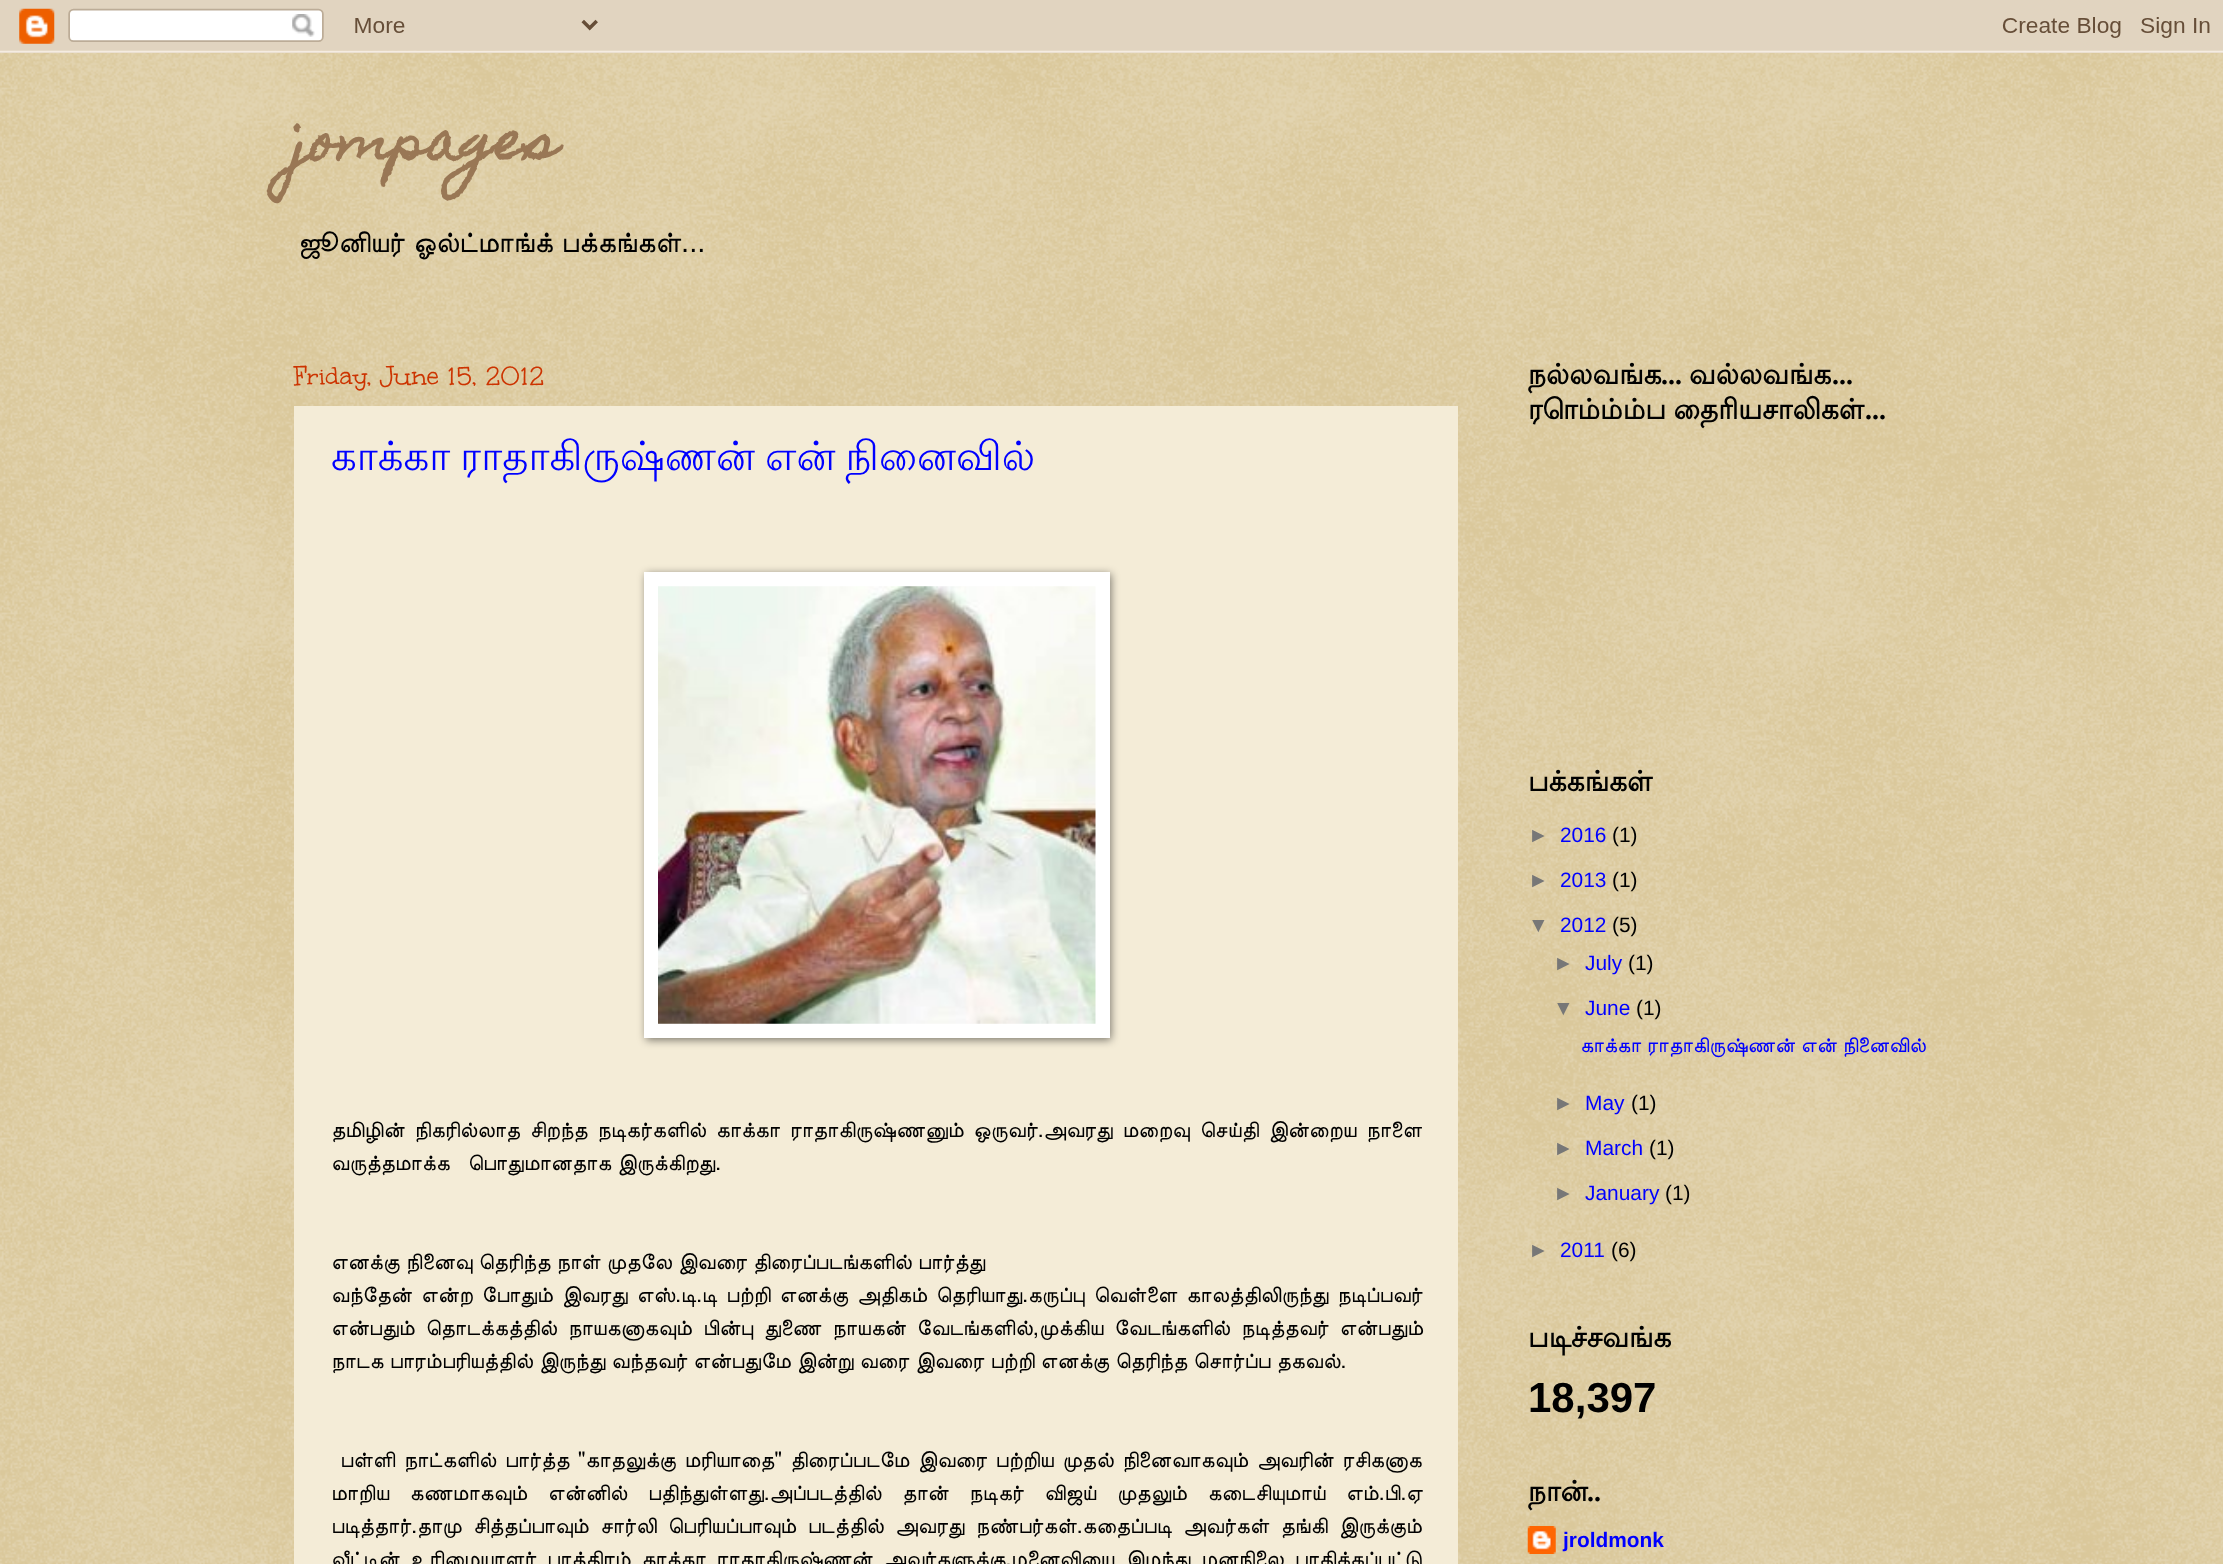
<!DOCTYPE html>
<meta charset="utf-8">
<style>body { margin: 0 } canvas { display: block }</style>
<canvas id="canvas" width="2223" height="1564"></canvas>
<script type="module">
  const canvas = document.getElementById("canvas");
  const g = canvas.getContext("2d");
  g.miterLimit = 4;
  g.fontKerning = "normal";
  function drawText(s, x, y, [font, color]) {
    g.font = font;
    g.fillStyle = color;
    g.fillText(s, x, y);
  }
  function fillBox(x, y, w, h, color) {
    g.fillStyle = color;
    g.fillRect(x, y, w, h);
  }
  async function drawPicture(src, x, y, w, h) {
    const img = new Image();
    img.src = src;
    await img.decode();
    g.drawImage(img, x, y, w, h);
  }

  const s1 = ["bold 52.5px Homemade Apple", "#997755"];
  const s2 = ["29.25px FreeSans", "#000000"];
  const s3 = ["29.25px Liberation Sans", "#000000"];
  const s4 = ["28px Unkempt", "#CC3300"];
  const s5 = ["40.25px Lohit Tamil", "#0000FF"];
  const s6 = ["22px FreeSans", "#000000"];
  const s7 = ["bold 28px Lohit Tamil", "#000000"];
  const s8 = ["bold 28px Liberation Serif", "#000000"];
  const s9 = ["20.9px Liberation Sans", "#777777"];
  const s10 = ["20.9px Liberation Sans", "#0000FF"];
  const s11 = ["20.9px Liberation Sans", "#000000"];
  const s12 = ["20.9px FreeSans", "#0000FF"];
  const s13 = ["bold 42px Liberation Sans", "#000000"];
  const s14 = ["bold 20.9px Liberation Sans", "#0000FF"];

  fillBox(0, 0, 2223, 1564, "#C0A154");
  await drawPicture("pic1.png", 0, 50, 2223, 1514);
  await drawPicture("pic2.png", 0, 0, 2223, 53);
  drawText("jompages", 294, 159, s1);
  g.wordSpacing = "1px";
  drawText("ஜூனியர் ஓல்ட்மாங்க் பக்கங்கள்", 298, 252, s2);
  g.wordSpacing = "0px";
  drawText("...", 681, 252, s3);
  drawText("Friday, June 15, 2012", 294, 386, s4);
  fillBox(294, 406, 1164, 1158, "#F4ECD7");
  g.wordSpacing = "-2px";
  drawText("காக்கா ராதாகிருஷ்ணன் என் நினைவில்", 331, 470, s5);
  g.fillStyle = "rgba(0, 0, 0, 0.5)";
  g.filter = "blur(4.5px)";
  g.beginPath();
  g.rect(646, 574, 465, 466);
  g.fill();
  g.filter = "none";
  fillBox(644, 572, 466, 466, "#FFFFFF");
  await drawPicture("pic3.png", 658, 586, 438, 438);
  g.wordSpacing = "4.25px";
  drawText("தமிழின் நிகரில்லாத சிறந்த நடிகர்களில் காக்கா ராதாகிருஷ்ணனும் ஒருவர்.அவரது மறைவு செய்தி இன்றைய நாளை", 331, 1137, s6);
  g.wordSpacing = "0.5px";
  drawText("வருத்தமாக்க   பொதுமானதாக இருக்கிறது.", 331, 1170, s6);
  drawText("எனக்கு நினைவு தெரிந்த நாள் முதலே இவரை திரைப்படங்களில் பார்த்து", 331, 1269, s6);
  g.wordSpacing = "3.5px";
  drawText("வந்தேன் என்ற போதும் இவரது எஸ்.டி.டி பற்றி எனக்கு அதிகம் தெரியாது.கருப்பு வெள்ளை காலத்திலிருந்து நடிப்பவர்", 331, 1302, s6);
  g.wordSpacing = "5.5px";
  drawText("என்பதும் தொடக்கத்தில் நாயகனாகவும் பின்பு துணை நாயகன் வேடங்களில்,முக்கிய வேடங்களில் நடித்தவர் என்பதும்", 331, 1335, s6);
  g.wordSpacing = "0.5px";
  drawText("நாடக பாரம்பரியத்தில் இருந்து வந்தவர் என்பதுமே இன்று வரை இவரை பற்றி எனக்கு தெரிந்த சொர்ப்ப தகவல்.", 331, 1368, s6);
  g.wordSpacing = "3px";
  drawText("பள்ளி நாட்களில் பார்த்த \"காதலுக்கு மரியாதை\" திரைப்படமே இவரை பற்றிய முதல் நினைவாகவும் அவரின் ரசிகனாக", 340, 1467, s6);
  g.wordSpacing = "15px";
  drawText("மாறிய கணமாகவும் என்னில் பதிந்துள்ளது.அப்படத்தில் தான் நடிகர் விஜய் முதலும் கடைசியுமாய் எம்.பி.ஏ", 331, 1500, s6);
  g.wordSpacing = "5.75px";
  drawText("படித்தார்.தாமு சித்தப்பாவும் சார்லி பெரியப்பாவும் படத்தில் அவரது நண்பர்கள்.கதைப்படி அவர்கள் தங்கி இருக்கும்", 331, 1533, s6);
  g.wordSpacing = "5.25px";
  drawText("வீட்டின் உரிமையாளர் பாத்திரம் காக்கா ராதாகிருஷ்ணன் அவர்களுக்கு.மனைவியை இழந்து மனநிலை பாதிக்கப்பட்டு", 331, 1566, s6);
  g.wordSpacing = "0px";
  drawText("நல்லவங்க", 1528, 384, s7);
  drawText("...", 1661, 384, s8);
  drawText("வல்லவங்க", 1689, 384, s7);
  drawText("...", 1832, 384, s8);
  g.wordSpacing = "-1px";
  drawText("ரொம்ம்ம்ப தைரியசாலிகள்", 1528, 419, s7);
  g.wordSpacing = "0px";
  drawText("...", 1865, 419, s8);
  drawText("பக்கங்கள்", 1528, 791, s7);
  drawText("►", 1528, 842, s9);
  drawText("2016", 1560, 842, s10);
  drawText("(1)", 1612, 842, s11);
  drawText("►", 1528, 887, s9);
  drawText("2013", 1560, 887, s10);
  drawText("(1)", 1612, 887, s11);
  drawText("▼", 1528, 932, s9);
  drawText("2012", 1560, 932, s10);
  drawText("(5)", 1612, 932, s11);
  drawText("►", 1553, 970, s9);
  drawText("July", 1585, 970, s10);
  drawText("(1)", 1628, 970, s11);
  drawText("▼", 1553, 1015, s9);
  drawText("June", 1585, 1015, s10);
  drawText("(1)", 1636, 1015, s11);
  g.wordSpacing = "0.5px";
  drawText("காக்கா ராதாகிருஷ்ணன் என் நினைவில்", 1580, 1052, s12);
  g.wordSpacing = "0px";
  drawText("►", 1553, 1110, s9);
  drawText("May", 1585, 1110, s10);
  drawText("(1)", 1631, 1110, s11);
  drawText("►", 1553, 1155, s9);
  drawText("March", 1585, 1155, s10);
  drawText("(1)", 1649, 1155, s11);
  drawText("►", 1553, 1200, s9);
  drawText("January", 1585, 1200, s10);
  drawText("(1)", 1665, 1200, s11);
  drawText("►", 1528, 1257, s9);
  drawText("2011", 1560, 1257, s10);
  drawText("(6)", 1611, 1257, s11);
  drawText("படிச்சவங்க", 1528, 1347, s7);
  drawText("18,397", 1528, 1412, s13);
  drawText("நான்", 1528, 1501, s7);
  drawText("..", 1587, 1501, s8);
  await drawPicture("pic4.png", 1527, 1526, 29, 28);
  drawText("jroldmonk", 1563, 1547, s14);
</script>
